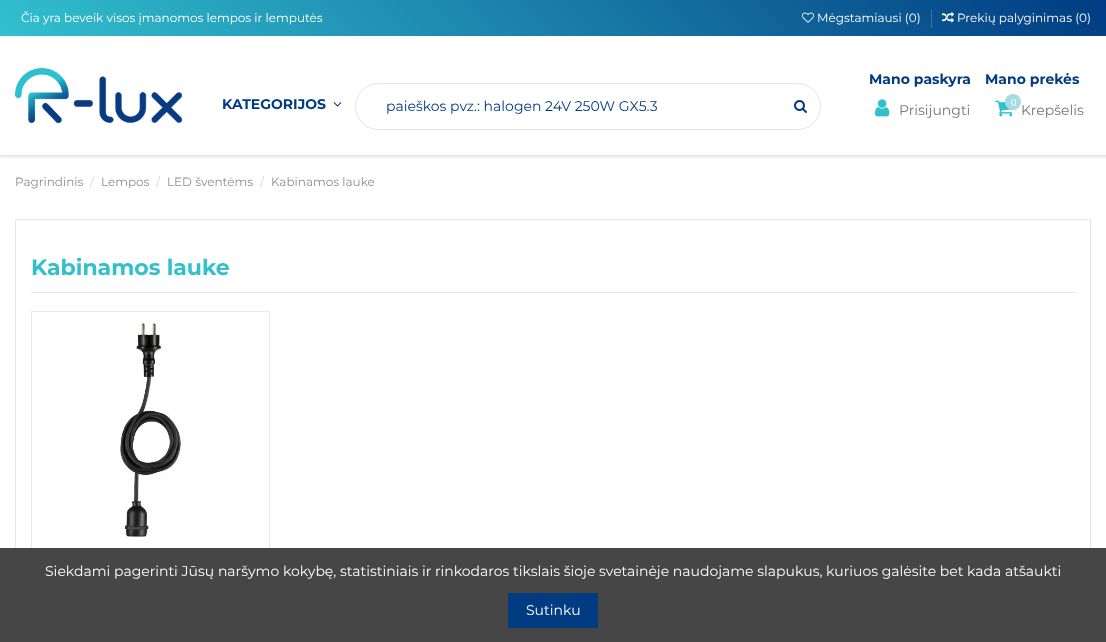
<!DOCTYPE html>
<meta charset="utf-8">
<style>body { margin: 0 } canvas { display: block }</style>
<canvas id="canvas" width="1106" height="642"></canvas>
<script type="module">
  const canvas = document.getElementById("canvas");
  const g = canvas.getContext("2d");
  g.miterLimit = 4;
  g.fontKerning = "normal";
  function drawText(s, x, y, [font, color]) {
    g.font = font;
    g.fillStyle = color;
    g.fillText(s, x, y);
  }
  function fillBox(x, y, w, h, color) {
    g.fillStyle = color;
    g.fillRect(x, y, w, h);
  }
  async function drawPicture(src, x, y, w, h) {
    const img = new Image();
    img.src = src;
    await img.decode();
    g.drawImage(img, x, y, w, h);
  }
  let gradient;

  const s1 = ["12px Montserrat", "#FFFFFF"];
  const s2 = ["bold 14px Montserrat", "#013B82"];
  const s3 = ["14px Montserrat", "#013B82"];
  const s4 = ["14px Montserrat", "#777777"];
  const s5 = ["11px Liberation Serif", "#FFFFFF"];
  const s6 = ["12px Montserrat", "#8F8F8F"];
  const s7 = ["12px Montserrat", "#D2D2D2"];
  const s8 = ["bold 22px Montserrat", "#32C0CF"];
  const s9 = ["14px Montserrat", "#FFFFFF"];

  fillBox(0, 0, 1106, 642, "#FFFFFF");
  g.save();
  g.beginPath();
  g.rect(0, 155, 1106, 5);
  g.clip();
  g.fillStyle = "#E0E0E0";
  g.filter = "blur(1.5px)";
  g.beginPath();
  g.rect(0, -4, 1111, 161);
  g.fill();
  g.filter = "none";
  g.restore();
  gradient = g.createLinearGradient(268, 304, 839, -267);
  gradient.addColorStop(0, "#32C0CF");
  gradient.addColorStop(1, "#013B82");
  g.fillStyle = gradient;
  g.fillRect(0, 0, 1106, 36);
  drawText("Čia yra beveik visos įmanomos lempos ir lemputės", 21, 22, s1);
  await drawPicture("pic1.png", 802, 12, 12, 11);
  drawText("Mėgstamiausi (0)", 817, 22, s1);
  fillBox(931, 10, 1, 18, "#3A74A5");
  await drawPicture("pic2.png", 942, 12, 12, 11);
  drawText("Prekių palyginimas (0)", 957, 22, s1);
  await drawPicture("pic3.png", 15, 67, 167, 56);
  drawText("KATEGORIJOS", 222, 109, s2);
  await drawPicture("pic4.png", 333, 102, 9, 5);
  g.beginPath();
  g.roundRect(355.5, 83.5, 465, 46, 23);
  g.strokeStyle = "#E3E3E3";
  g.stroke();
  drawText("paieškos pvz.: halogen 24V 250W GX5.3", 386, 111, s3);
  await drawPicture("pic5.png", 794, 100, 13, 13);
  drawText("Mano paskyra", 869, 84, s2);
  await drawPicture("pic6.png", 875, 99, 15, 18);
  drawText("Prisijungti", 899, 115, s4);
  drawText("Mano prekės", 985, 84, s2);
  await drawPicture("pic7.png", 995, 100, 19, 17);
  g.fillStyle = "#A4DCE4";
  g.beginPath();
  g.arc(1013, 102, 8, 0, Math.PI * 2);
  g.fill();
  drawText("0", 1011, 106, s5);
  drawText("Krepšelis", 1021, 115, s4);
  drawText("Pagrindinis", 15, 186, s6);
  drawText("/", 90, 186, s7);
  drawText("Lempos", 101, 186, s6);
  drawText("/", 156, 186, s7);
  drawText("LED šventėms", 167, 186, s6);
  drawText("/", 260, 186, s7);
  drawText("Kabinamos lauke", 271, 186, s6);
  g.strokeStyle = "#E6E6E6";
  g.strokeRect(15.5, 219.5, 1075, 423);
  fillBox(31, 292, 1044, 1, "#E3E3E3");
  drawText("Kabinamos lauke", 31, 275, s8);
  g.strokeStyle = "#E8E8E8";
  g.strokeRect(31.5, 311.5, 238, 237);
  await drawPicture("pic8.png", 120, 320, 61, 217);
  fillBox(0, 548, 1106, 94, "#464646");
  drawText("Siekdami pagerinti Jūsų naršymo kokybę, statistiniais ir rinkodaros tikslais šioje svetainėje naudojame slapukus, kuriuos galėsite bet kada atšaukti", 45, 576, s9);
  fillBox(508, 593, 90, 35, "#013B82");
  drawText("Sutinku", 526, 615, s9);
</script>
